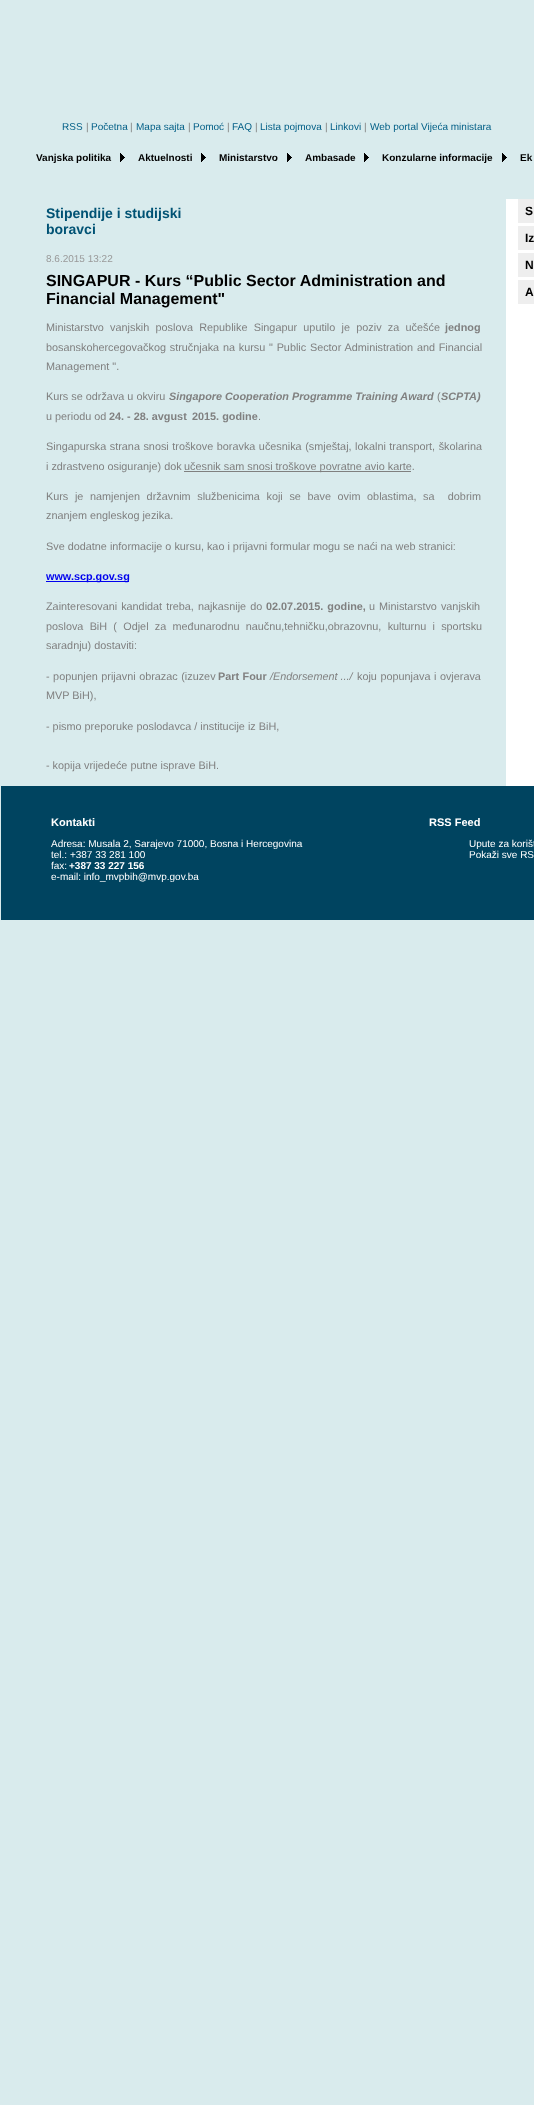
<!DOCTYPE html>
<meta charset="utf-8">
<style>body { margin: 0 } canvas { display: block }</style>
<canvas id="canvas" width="534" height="2105"></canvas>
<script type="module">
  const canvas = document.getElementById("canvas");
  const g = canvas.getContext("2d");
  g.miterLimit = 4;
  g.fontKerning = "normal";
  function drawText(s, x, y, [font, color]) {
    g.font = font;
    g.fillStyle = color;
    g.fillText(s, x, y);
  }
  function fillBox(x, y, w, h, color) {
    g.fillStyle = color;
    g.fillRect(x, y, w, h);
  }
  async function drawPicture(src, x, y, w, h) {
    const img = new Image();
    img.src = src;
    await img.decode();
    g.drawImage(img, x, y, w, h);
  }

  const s1 = ["10px Liberation Sans", "#005E86"];
  const s2 = ["10px Liberation Sans", "#808080"];
  const s3 = ["bold 10px Liberation Sans", "#000000"];
  const s4 = ["bold 14px Liberation Sans", "#005274"];
  const s5 = ["10px Liberation Sans", "#999999"];
  const s6 = ["bold 16px Liberation Sans", "#000000"];
  const s7 = ["10.85px Liberation Sans", "#808080"];
  const s8 = ["bold 10.85px Liberation Sans", "#808080"];
  const s9 = ["italic bold 10.85px Liberation Sans", "#808080"];
  const s10 = ["bold 10.85px Liberation Sans", "#0000EE"];
  const s11 = ["italic 10.85px Liberation Sans", "#808080"];
  const s12 = ["bold 12px Liberation Sans", "#000000"];
  const s13 = ["bold 11px Liberation Sans", "#FFFFFF"];
  const s14 = ["10px Liberation Sans", "#FFFFFF"];
  const s15 = ["bold 10px Liberation Sans", "#FFFFFF"];

  fillBox(0, 0, 534, 2105, "#D9EBED");
  drawText("RSS", 62, 130, s1);
  drawText("|", 86, 130, s2);
  drawText("Početna", 91, 130, s1);
  drawText("|", 130, 130, s2);
  drawText("Mapa sajta", 136, 130, s1);
  drawText("|", 188, 130, s2);
  drawText("Pomoć", 193, 130, s1);
  drawText("|", 227, 130, s2);
  drawText("FAQ", 232, 130, s1);
  drawText("|", 255, 130, s2);
  drawText("Lista pojmova", 260, 130, s1);
  drawText("|", 325, 130, s2);
  drawText("Linkovi", 330, 130, s1);
  drawText("|", 364, 130, s2);
  drawText("Web portal Vijeća ministara", 370, 130, s1);
  drawText("Vanjska politika", 36, 161, s3);
  await drawPicture("pic1.png", 120, 153, 5, 9);
  drawText("Aktuelnosti", 138, 161, s3);
  await drawPicture("pic1.png", 201, 153, 5, 9);
  drawText("Ministarstvo", 219, 161, s3);
  await drawPicture("pic1.png", 287, 153, 5, 9);
  drawText("Ambasade", 305, 161, s3);
  await drawPicture("pic1.png", 364, 153, 5, 9);
  drawText("Konzularne informacije", 382, 161, s3);
  await drawPicture("pic1.png", 502, 153, 5, 9);
  drawText("Ek", 520, 161, s3);
  drawText("Stipendije i studijski", 46, 218, s4);
  drawText("boravci", 46, 234, s4);
  drawText("8.6.2015 13:22", 46, 262, s5);
  drawText("SINGAPUR - Kurs “Public Sector Administration and", 46, 286, s6);
  drawText("Financial Management\"", 46, 304, s6);
  g.wordSpacing = "3.25px";
  drawText("Ministarstvo vanjskih poslova Republike Singapur uputilo je poziv za učešće", 46, 331, s7);
  g.wordSpacing = "0px";
  drawText("jednog", 445, 331, s8);
  g.wordSpacing = "0.75px";
  drawText("bosanskohercegovačkog stručnjaka na kursu \" Public Sector Administration and Financial", 46, 351, s7);
  g.wordSpacing = "0px";
  drawText("Management \".", 46, 370, s7);
  drawText("Kurs se održava u okviru", 46, 400, s7);
  drawText("Singapore Cooperation Programme Training Award", 169, 400, s9);
  drawText("(", 437, 400, s7);
  drawText("SCPTA)", 441, 400, s9);
  drawText("u periodu od", 46, 420, s7);
  drawText("24. - 28. avgust", 109, 420, s8);
  drawText("2015. godine", 192, 420, s8);
  drawText(".", 258, 420, s7);
  g.wordSpacing = "0.5px";
  drawText("Singapurska strana snosi troškove boravka učesnika (smještaj, lokalni transport, školarina", 46, 450, s7);
  g.wordSpacing = "0px";
  drawText("i zdrastveno osiguranje) dok", 46, 470, s7);
  fillBox(184, 471, 227, 1, "#808080");
  drawText("učesnik sam snosi troškove povratne avio karte.", 184, 470, s7);
  g.wordSpacing = "3.6px";
  drawText("Kurs je namjenjen državnim službenicima koji se bave ovim oblastima, sa  dobrim", 46, 500, s7);
  g.wordSpacing = "0px";
  drawText("znanjem engleskog jezika.", 46, 519, s7);
  drawText("Sve dodatne informacije o kursu, kao i prijavni formular mogu se naći na web stranici:", 46, 550, s7);
  fillBox(46, 581, 83, 1, "#0000EE");
  drawText("www.scp.gov.sg", 46, 580, s10);
  g.wordSpacing = "1px";
  drawText("Zainteresovani kandidat treba, najkasnije do", 46, 610, s7);
  drawText("02.07.2015. godine,", 266, 610, s8);
  drawText("u Ministarstvo vanjskih", 369, 610, s7);
  g.wordSpacing = "3.25px";
  drawText("poslova BiH ( Odjel za međunarodnu naučnu,tehničku,obrazovnu, kulturnu i sportsku", 46, 630, s7);
  g.wordSpacing = "0px";
  drawText("saradnju) dostaviti:", 46, 649, s7);
  g.wordSpacing = "0.5px";
  drawText("- popunjen prijavni obrazac (izuzev", 46, 680, s7);
  drawText("Part Four", 218, 680, s8);
  g.wordSpacing = "0px";
  drawText("/Endorsement .../", 270, 680, s11);
  g.wordSpacing = "0.5px";
  drawText("koju popunjava i ovjerava", 357, 680, s7);
  g.wordSpacing = "0px";
  drawText("MVP BiH),", 46, 699, s7);
  drawText("- pismo preporuke poslodavca / institucije iz BiH,", 46, 730, s7);
  drawText("- kopija vrijedeće putne isprave BiH.", 46, 769, s7);
  fillBox(506, 199, 28, 587, "#FFFFFF");
  fillBox(518, 199, 16, 24, "#EEEEEE");
  drawText("S", 525, 215, s12);
  fillBox(518, 226, 16, 24, "#EEEEEE");
  drawText("Iz", 525, 242, s12);
  fillBox(518, 253, 16, 24, "#EEEEEE");
  drawText("N", 525, 269, s12);
  fillBox(518, 280, 16, 24, "#EEEEEE");
  drawText("A", 525, 296, s12);
  fillBox(1, 786, 533, 134, "#004460");
  drawText("Kontakti", 51, 826, s13);
  drawText("Adresa: Musala 2, Sarajevo 71000, Bosna i Hercegovina", 51, 847, s14);
  drawText("tel.: +387 33 281 100", 51, 858, s14);
  drawText("fax:", 51, 869, s14);
  drawText("+387 33 227 156", 69, 869, s15);
  drawText("e-mail: info_mvpbih@mvp.gov.ba", 51, 880, s14);
  drawText("RSS Feed", 429, 826, s13);
  drawText("Upute za korišt", 469, 847, s14);
  drawText("Pokaži sve RS", 469, 858, s14);
</script>
